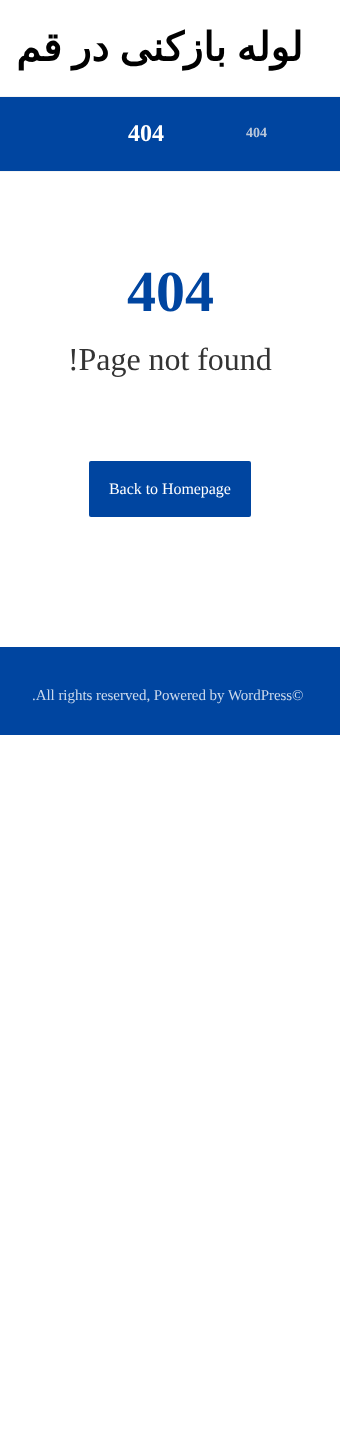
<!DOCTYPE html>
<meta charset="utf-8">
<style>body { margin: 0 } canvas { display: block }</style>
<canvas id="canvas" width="340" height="1442"></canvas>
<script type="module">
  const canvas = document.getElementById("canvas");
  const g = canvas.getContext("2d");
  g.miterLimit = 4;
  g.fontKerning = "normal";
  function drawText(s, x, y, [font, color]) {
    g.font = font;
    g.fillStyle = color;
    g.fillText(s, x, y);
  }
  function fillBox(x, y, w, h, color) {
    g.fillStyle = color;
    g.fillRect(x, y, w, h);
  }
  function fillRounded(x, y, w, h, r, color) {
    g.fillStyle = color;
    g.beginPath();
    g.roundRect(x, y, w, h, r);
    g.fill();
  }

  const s1 = ["bold 40px DejaVu Sans", "#000000"];
  const s2 = ["bold 24px Liberation Serif", "#FFFFFF"];
  const s3 = ["bold 14px Liberation Serif", "#BAC7DA"];
  const s4 = ["bold 58px Liberation Serif", "#0045A0"];
  const s5 = ["32px Liberation Serif", "#333333"];
  const s6 = ["16px Liberation Serif", "#FFFFFF"];
  const s7 = ["15px Liberation Serif", "#CCDAEC"];

  fillBox(0, 0, 340, 1442, "#FFFFFF");
  fillBox(0, 96, 340, 1, "#F4F4F4");
  g.letterSpacing = "-0.05px";
  g.wordSpacing = "-2.5px";
  g.direction = "rtl";
  drawText("لوله بازکنی در قم", 303, 61, s1);
  fillBox(0, 97, 340, 74, "#0045A0");
  fillBox(0, 171, 340, 1, "#F4F4F4");
  g.wordSpacing = "0px";
  g.direction = "ltr";
  drawText("404", 128, 141, s2);
  drawText("404", 246, 137, s3);
  drawText("404", 127, 311, s4);
  drawText("!Page not found", 68, 370, s5);
  fillRounded(89, 461, 162, 56, 2, "#0045A0");
  drawText("Back to Homepage", 109, 494, s6);
  fillBox(0, 647, 340, 88, "#0045A0");
  drawText(".All rights reserved, Powered by WordPress©", 32, 700, s7);
</script>
